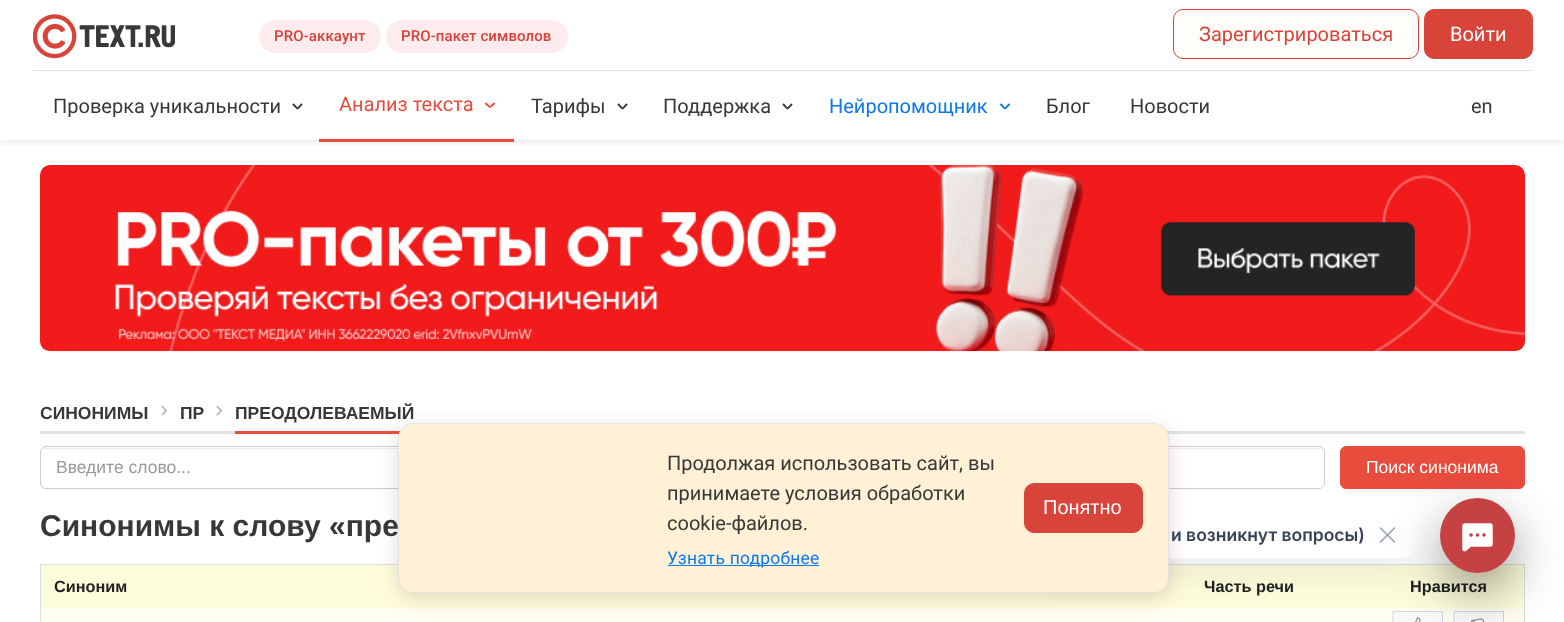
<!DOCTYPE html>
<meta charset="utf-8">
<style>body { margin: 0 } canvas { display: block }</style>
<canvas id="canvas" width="1564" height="622"></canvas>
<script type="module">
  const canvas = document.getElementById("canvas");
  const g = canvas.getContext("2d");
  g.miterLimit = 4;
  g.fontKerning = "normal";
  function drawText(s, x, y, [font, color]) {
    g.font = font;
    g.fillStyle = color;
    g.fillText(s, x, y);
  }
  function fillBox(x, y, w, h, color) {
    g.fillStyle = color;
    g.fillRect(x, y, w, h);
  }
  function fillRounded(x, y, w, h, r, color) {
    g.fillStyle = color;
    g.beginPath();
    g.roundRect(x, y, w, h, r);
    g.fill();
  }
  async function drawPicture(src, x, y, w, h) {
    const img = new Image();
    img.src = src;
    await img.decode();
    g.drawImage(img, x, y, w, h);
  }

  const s1 = ["500 15px Roboto", "#D9443A"];
  const s2 = ["20px Roboto", "#D9443A"];
  const s3 = ["20px Roboto", "#FFFFFF"];
  const s4 = ["20px Roboto", "#383838"];
  const s5 = ["20px Roboto", "#E84C3C"];
  const s6 = ["20px Roboto", "#0C78ED"];
  const s7 = ["bold 17.5px Liberation Sans", "#383838"];
  const s8 = ["17.5px Liberation Sans", "#999999"];
  const s9 = ["17.5px Liberation Sans", "#FFFFFF"];
  const s10 = ["bold 30px Liberation Sans", "#383838"];
  const s11 = ["bold 16.25px Liberation Sans", "#222222"];
  const s12 = ["17.5px Roboto", "#0C78ED"];
  const s13 = ["20px Liberation Sans", "#FFFFFF"];
  const s14 = ["600 17.5px Inter", "#374357"];

  fillBox(0, 0, 1564, 622, "#FFFFFF");
  g.save();
  g.beginPath();
  g.rect(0, 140, 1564, 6);
  g.clip();
  g.fillStyle = "rgba(22, 44, 70, 0.14)";
  g.filter = "blur(5px)";
  g.beginPath();
  g.rect(0, 1, 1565, 140);
  g.fill();
  g.filter = "none";
  g.restore();
  await drawPicture("pic1.png", 33, 14, 142, 45);
  fillRounded(259, 20, 122, 33, 16.5, "#FDEBEE");
  g.letterSpacing = "0.1px";
  drawText("PRO-аккаунт", 274, 41, s1);
  fillRounded(386, 20, 182, 33, 16.5, "#FDEBEE");
  drawText("PRO-пакет символов", 401, 41, s1);
  g.fillStyle = "#FFFDFA";
  g.beginPath();
  g.roundRect(1173.5, 9.5, 245, 49, 9.5);
  g.fill();
  g.strokeStyle = "#D9443A";
  g.stroke();
  g.letterSpacing = "0px";
  drawText("Зарегистрироваться", 1199, 41, s2);
  g.beginPath();
  g.roundRect(1424.5, 9.5, 108, 49, 9.5);
  g.fill();
  g.stroke();
  drawText("Войти", 1450, 41, s3);
  fillBox(33, 70, 1500, 1, "#E3E3E3");
  g.beginPath();
  g.moveTo(301.5, 104.5);
  g.bezierCurveTo(297, 109.5, 298, 109.5, 293.5, 104.5);
  g.strokeStyle = "#3A3A3A";
  g.lineWidth = 1.9;
  g.lineCap = "round";
  g.lineJoin = "round";
  g.stroke();
  drawText("Проверка уникальности", 53, 113, s4);
  g.beginPath();
  g.moveTo(494, 103.5);
  g.bezierCurveTo(489.5, 108, 490.5, 108, 486, 103.5);
  g.strokeStyle = "#E84C3C";
  g.stroke();
  drawText("Анализ текста", 339, 111, s5);
  fillBox(319, 139, 195, 3, "#E84C3C");
  g.beginPath();
  g.moveTo(626.5, 104.5);
  g.bezierCurveTo(622, 109.5, 623, 109.5, 618.5, 104.5);
  g.strokeStyle = "#3A3A3A";
  g.stroke();
  drawText("Тарифы", 531, 113, s4);
  g.beginPath();
  g.moveTo(791.5, 104.5);
  g.bezierCurveTo(787, 109.5, 788, 109.5, 783.5, 104.5);
  g.stroke();
  drawText("Поддержка", 663, 113, s4);
  g.beginPath();
  g.moveTo(1009, 104.5);
  g.bezierCurveTo(1004.5, 109.5, 1005.5, 109.5, 1001, 104.5);
  g.strokeStyle = "#0C78ED";
  g.stroke();
  drawText("Нейропомощник", 829, 113, s6);
  drawText("Блог", 1046, 113, s4);
  drawText("Новости", 1130, 113, s4);
  drawText("en", 1471, 113, s4);
  await drawPicture("pic2.png", 40, 165, 1485, 187);
  drawText("СИНОНИМЫ", 40, 419, s7);
  await drawPicture("pic3.png", 161, 405, 6, 11);
  drawText("ПР", 180, 419, s7);
  await drawPicture("pic3.png", 216, 405, 6, 11);
  fillBox(40, 431, 1485, 3, "#E1E1E1");
  fillBox(235, 431, 165, 3, "#E84C3D");
  drawText("ПРЕОДОЛЕВАЕМЫЙ", 235, 419, s7);
  g.fillStyle = "#ECECEC";
  g.beginPath();
  g.moveTo(46, 449);
  g.lineTo(1319, 449);
  g.bezierCurveTo(1322, 449, 1324, 451, 1324, 454);
  g.bezierCurveTo(1324, 451, 1322, 448, 1319, 448);
  g.lineTo(46, 448);
  g.bezierCurveTo(43, 448, 41, 451, 41, 454);
  g.bezierCurveTo(41, 451, 43, 449, 46, 449);
  g.closePath();
  g.fill();
  g.beginPath();
  g.roundRect(40.5, 446.5, 1284, 42, 5.5);
  g.strokeStyle = "#CCCCCC";
  g.lineWidth = 1;
  g.lineJoin = "miter";
  g.stroke();
  drawText("Введите слово...", 56, 473, s8);
  g.fillStyle = "#E84C3D";
  g.beginPath();
  g.roundRect(1340.5, 446.5, 184, 42, 5.5);
  g.fill();
  g.strokeStyle = "#E84C3D";
  g.stroke();
  drawText("Поиск синонима", 1366, 473, s9);
  drawText("Синонимы к слову «пре", 40, 536, s10);
  g.strokeStyle = "#DDDDDD";
  g.strokeRect(40.5, 564.5, 1484, 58);
  fillBox(41, 565, 1483, 43, "#FEFDDB");
  drawText("Синоним", 54, 592, s11);
  drawText("Часть речи", 1204, 592, s11);
  drawText("Нравится", 1410, 592, s11);
  fillBox(41, 608, 1483, 14, "#FFFEF0");
  g.fillStyle = "#FAFAFA";
  g.beginPath();
  g.rect(1393.5, 611.5, 49, 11);
  g.fill();
  g.strokeStyle = "#CDD6E1";
  g.stroke();
  await drawPicture("pic4.png", 1414, 617, 8, 5);
  g.beginPath();
  g.rect(1454.5, 611.5, 49, 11);
  g.fill();
  g.stroke();
  await drawPicture("pic5.png", 1471, 618, 14, 4);
  g.fillStyle = "rgba(16, 24, 40, 0.08)";
  g.filter = "blur(15px)";
  g.beginPath();
  g.roundRect(1053, 543, 357, 35, 5);
  g.fill();
  g.filter = "none";
  fillRounded(1048, 513, 367, 45, 10, "#FFFFFF");
  g.fillStyle = "rgba(76, 20, 20, 0.16)";
  g.filter = "blur(10px)";
  g.beginPath();
  g.roundRect(398, 428, 771, 170, 15);
  g.fill();
  g.filter = "none";
  g.fillStyle = "#FFF1D5";
  g.beginPath();
  g.roundRect(398.5, 423.5, 770, 169, 14.5);
  g.fill();
  g.strokeStyle = "#E3E3E3";
  g.stroke();
  drawText("Продолжая использовать сайт, вы", 667, 470, s4);
  drawText("принимаете условия обработки", 667, 500, s4);
  drawText("cookie-файлов.", 667, 530, s4);
  fillBox(668, 565, 151, 1, "#0C78ED");
  g.letterSpacing = "0.2px";
  drawText("Узнать подробнее", 667, 564, s12);
  g.fillStyle = "#D9443A";
  g.beginPath();
  g.roundRect(1024.5, 483.5, 118, 49, 9.5);
  g.fill();
  g.strokeStyle = "#D9443A";
  g.stroke();
  g.letterSpacing = "0px";
  drawText("Понятно", 1043, 514, s13);
  drawText("и возникнут вопросы)", 1171, 541, s14);
  await drawPicture("pic6.png", 1379, 527, 17, 16);
  g.fillStyle = "rgba(0, 0, 0, 0.4)";
  g.filter = "blur(25px)";
  g.beginPath();
  g.roundRect(1440, 518, 75, 75, 37.5);
  g.fill();
  g.filter = "none";
  g.fillStyle = "#C64141";
  g.beginPath();
  g.arc(1477.5, 535.5, 37.5, 0, Math.PI * 2);
  g.fill();
  await drawPicture("pic7.png", 1462, 523, 31, 29);
</script>
